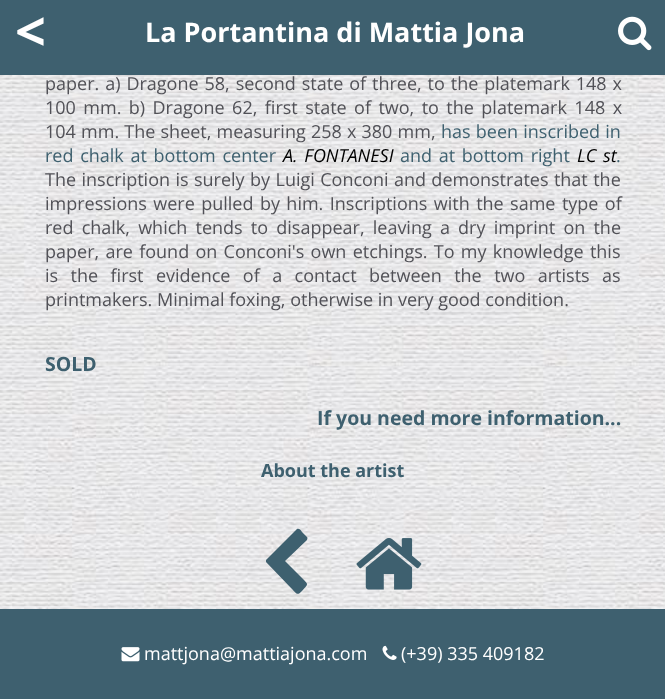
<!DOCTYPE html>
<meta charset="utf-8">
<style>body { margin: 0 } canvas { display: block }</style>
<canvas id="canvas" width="665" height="699"></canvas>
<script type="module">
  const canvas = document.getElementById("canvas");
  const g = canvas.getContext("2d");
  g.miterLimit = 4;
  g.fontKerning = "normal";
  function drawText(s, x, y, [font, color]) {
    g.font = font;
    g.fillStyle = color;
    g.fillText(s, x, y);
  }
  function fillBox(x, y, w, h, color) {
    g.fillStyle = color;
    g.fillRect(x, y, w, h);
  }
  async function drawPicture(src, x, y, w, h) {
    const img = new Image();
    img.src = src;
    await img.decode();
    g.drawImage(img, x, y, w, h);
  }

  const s1 = ["bold 54px Open Sans", "#FFFFFF"];
  const s2 = ["bold 27px Open Sans", "#FFFFFF"];
  const s3 = ["18px Open Sans", "#515157"];
  const s4 = ["18px Open Sans", "#3E606F"];
  const s5 = ["italic 18px Open Sans", "#000000"];
  const s6 = ["bold 19.5px Open Sans", "#3E606F"];
  const s7 = ["bold 18px Open Sans", "#3E606F"];
  const s8 = ["18px Open Sans", "#FFFFFF"];

  fillBox(0, 0, 665, 699, "#FFFFFF");
  await drawPicture("pic1.png", 0, 75, 665, 534);
  fillBox(0, 0, 665, 75, "#3E606F");
  drawText("<", 15, 51, s1);
  drawText("La Portantina di Mattia Jona", 145, 42, s2);
  await drawPicture("pic2.png", 618, 16, 34, 35);
  g.wordSpacing = "1.25px";
  drawText("paper. a) Dragone 58, second state of three, to the platemark 148 x", 45, 90, s3);
  g.wordSpacing = "2.75px";
  drawText("100 mm. b) Dragone 62, first state of two, to the platemark 148 x", 45, 114, s3);
  g.wordSpacing = "0.5px";
  drawText("104 mm. The sheet, measuring 258 x 380 mm,", 45, 138, s3);
  drawText("has been inscribed in", 441, 138, s4);
  g.wordSpacing = "2px";
  drawText("red chalk at bottom center", 45, 162, s4);
  drawText("A. FONTANESI", 283, 162, s5);
  drawText("and at bottom right", 400, 162, s4);
  drawText("LC st", 577, 162, s5);
  g.wordSpacing = "0px";
  drawText(".", 616, 162, s4);
  g.wordSpacing = "0.75px";
  drawText("The inscription is surely by Luigi Conconi and demonstrates that the", 45, 186, s3);
  g.wordSpacing = "1.75px";
  drawText("impressions were pulled by him. Inscriptions with the same type of", 45, 210, s3);
  g.wordSpacing = "3.5px";
  drawText("red chalk, which tends to disappear, leaving a dry imprint on the", 45, 234, s3);
  g.wordSpacing = "1.6px";
  drawText("paper, are found on Conconi's own etchings. To my knowledge this", 45, 258, s3);
  g.wordSpacing = "7.75px";
  drawText("is the first evidence of a contact between the two artists as", 45, 282, s3);
  g.wordSpacing = "0px";
  drawText("printmakers. Minimal foxing, otherwise in very good condition.", 45, 306, s3);
  drawText("SOLD", 45, 371, s6);
  drawText("If you need more information...", 317, 425, s6);
  drawText("About the artist", 261, 477, s7);
  g.beginPath();
  g.moveTo(307, 540);
  g.lineTo(285, 561);
  g.lineTo(303, 579);
  g.bezierCurveTo(309, 585, 308, 584, 302, 591);
  g.bezierCurveTo(297, 596, 297, 594, 291, 588);
  g.lineTo(266, 562);
  g.lineTo(266, 560);
  g.lineTo(296, 530);
  g.bezierCurveTo(298, 527, 301, 530, 302, 532);
  g.lineTo(307, 537);
  g.bezierCurveTo(308, 538, 307, 539, 307, 540);
  g.closePath();
  g.fill();
  await drawPicture("pic3.png", 356, 538, 66, 52);
  fillBox(0, 609, 665, 90, "#3E606F");
  await drawPicture("pic4.png", 121, 647, 19, 15);
  drawText("mattjona@mattiajona.com", 144, 660, s8);
  await drawPicture("pic5.png", 382, 645, 15, 15);
  drawText("(+39) 335 409182", 401, 660, s8);
</script>
